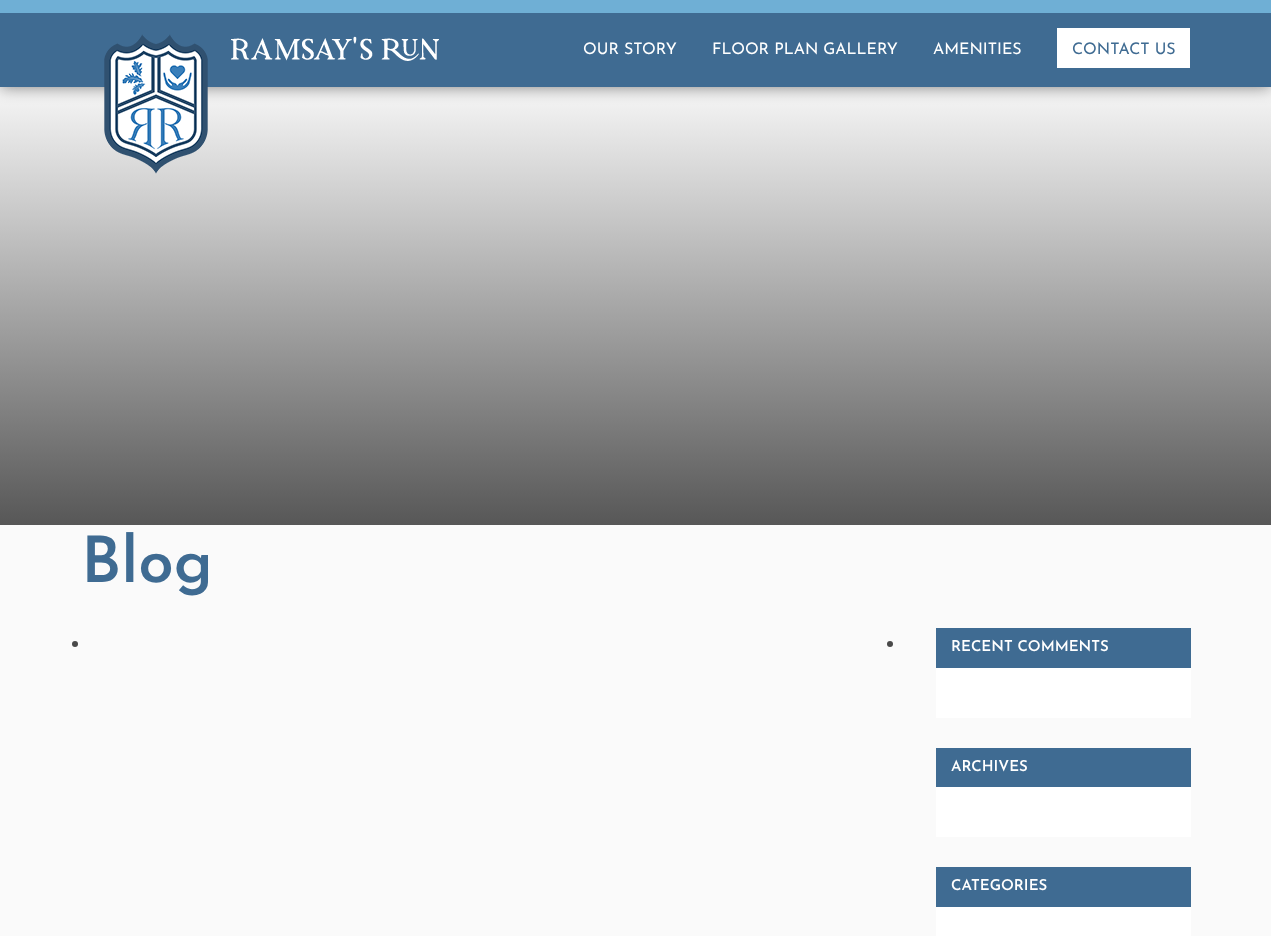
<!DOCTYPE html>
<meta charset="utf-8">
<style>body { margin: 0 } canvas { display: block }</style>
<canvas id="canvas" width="1271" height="936"></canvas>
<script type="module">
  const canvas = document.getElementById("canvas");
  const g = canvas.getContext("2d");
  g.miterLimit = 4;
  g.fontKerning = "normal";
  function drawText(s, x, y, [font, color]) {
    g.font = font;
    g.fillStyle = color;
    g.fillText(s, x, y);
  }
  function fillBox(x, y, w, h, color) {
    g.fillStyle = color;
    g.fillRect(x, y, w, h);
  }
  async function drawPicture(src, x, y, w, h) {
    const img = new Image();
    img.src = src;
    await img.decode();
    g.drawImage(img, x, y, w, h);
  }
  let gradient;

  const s1 = ["16px Josefin Sans", "#FFFFFF"];
  const s2 = ["16px Josefin Sans", "#3F6B92"];
  const s3 = ["600 64px Josefin Sans", "#3F6B92"];
  const s4 = ["600 15px Josefin Sans", "#FFFFFF"];

  fillBox(0, 0, 1271, 936, "#FAFAFA");
  gradient = g.createLinearGradient(636, 80, 636, 525);
  gradient.addColorStop(0, "#F9F9F9");
  gradient.addColorStop(1, "#575757");
  g.fillStyle = gradient;
  g.fillRect(0, 87, 1271, 438);
  g.fillStyle = "rgba(0, 0, 0, 0.5)";
  g.filter = "blur(8px)";
  g.beginPath();
  g.rect(0, 0, 1271, 87);
  g.fill();
  g.filter = "none";
  fillBox(0, 13, 1271, 74, "#3F6B92");
  fillBox(0, 0, 1271, 13, "#6FAFD5");
  await drawPicture("pic1.png", 104, 34, 104, 140);
  await drawPicture("pic2.png", 231, 36, 208, 25);
  drawText("OUR STORY", 583, 54, s1);
  drawText("FLOOR PLAN GALLERY", 712, 54, s1);
  drawText("AMENITIES", 933, 54, s1);
  fillBox(1057, 28, 133, 40, "#FFFFFF");
  drawText("CONTACT US", 1072, 54, s2);
  drawText("Blog", 81, 582, s3);
  g.fillStyle = "#494949";
  g.beginPath();
  g.arc(75, 644, 3, 0, Math.PI * 2);
  g.fill();
  g.beginPath();
  g.arc(890, 644, 3, 0, Math.PI * 2);
  g.fill();
  fillBox(936, 668, 255, 50, "#FFFFFF");
  fillBox(936, 628, 255, 40, "#3F6B92");
  drawText("RECENT COMMENTS", 951, 651, s4);
  fillBox(936, 787, 255, 50, "#FFFFFF");
  fillBox(936, 748, 255, 39, "#3F6B92");
  drawText("ARCHIVES", 951, 771, s4);
  fillBox(936, 907, 255, 29, "#FFFFFF");
  fillBox(936, 867, 255, 40, "#3F6B92");
  drawText("CATEGORIES", 951, 890, s4);
</script>
